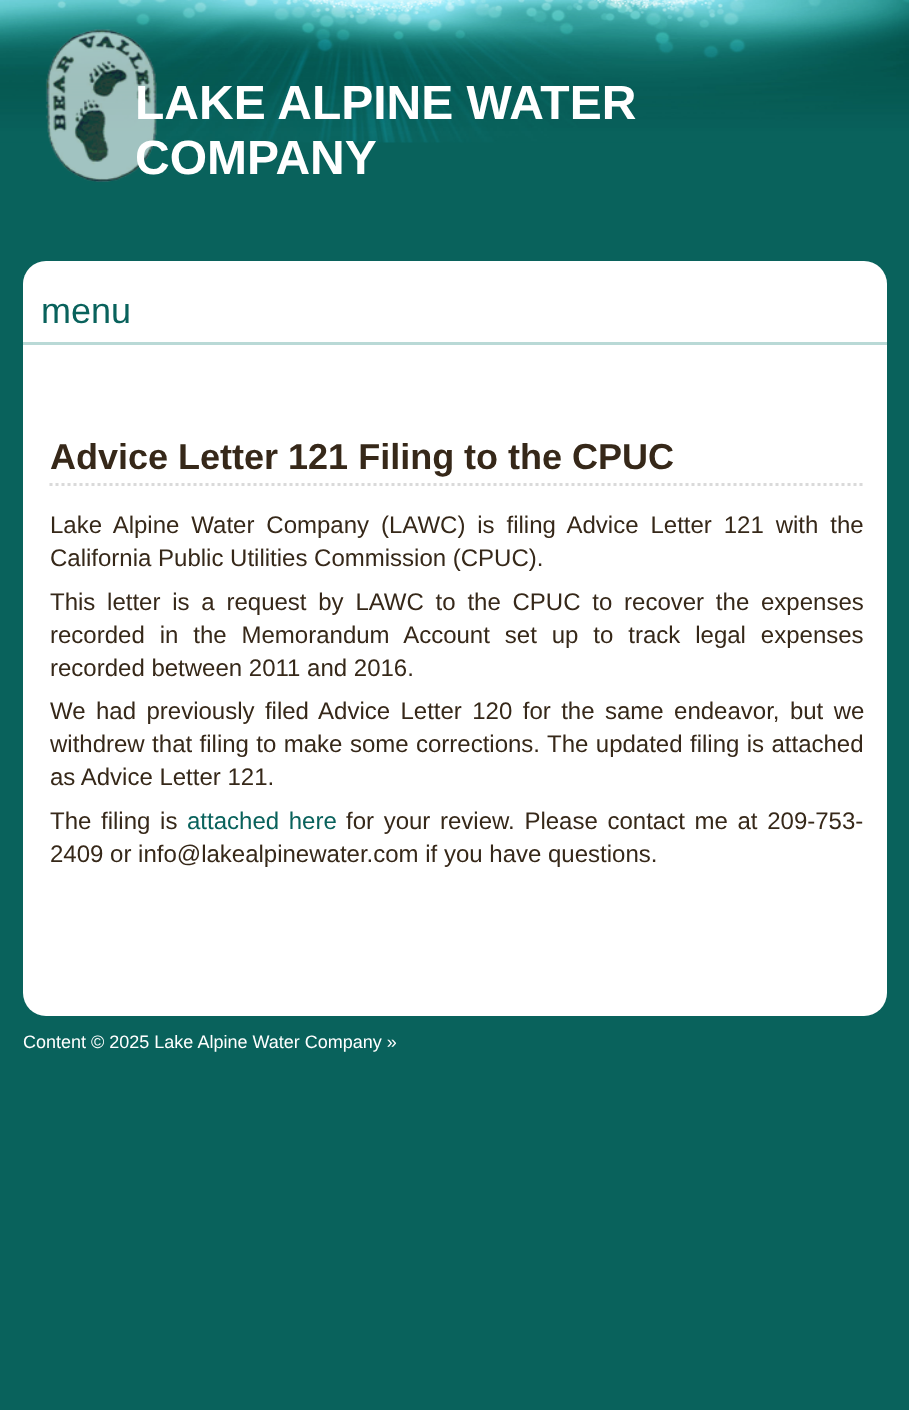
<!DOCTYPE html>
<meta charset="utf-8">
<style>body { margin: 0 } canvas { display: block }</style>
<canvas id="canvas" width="909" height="1410"></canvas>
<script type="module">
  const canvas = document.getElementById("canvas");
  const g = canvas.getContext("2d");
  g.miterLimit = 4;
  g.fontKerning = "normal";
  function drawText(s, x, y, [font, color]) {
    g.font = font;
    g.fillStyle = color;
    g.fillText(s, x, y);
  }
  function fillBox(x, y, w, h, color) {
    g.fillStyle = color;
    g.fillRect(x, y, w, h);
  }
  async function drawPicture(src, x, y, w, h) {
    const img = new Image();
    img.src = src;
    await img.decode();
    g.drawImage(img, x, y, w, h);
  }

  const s1 = ["bold 48px Liberation Sans", "#FFFFFF"];
  const s2 = ["36px Liberation Sans", "#09625C"];
  const s3 = ["bold 36px Liberation Sans", "#362819"];
  const s4 = ["24px Liberation Sans", "#362819"];
  const s5 = ["24px Liberation Sans", "#09625C"];
  const s6 = ["18px Liberation Sans", "#FFFFFF"];

  fillBox(0, 0, 909, 1410, "#09625C");
  await drawPicture("pic1.png", 0, 0, 909, 143);
  await drawPicture("pic2.png", 45, 29, 114, 153);
  drawText("LAKE ALPINE WATER", 135, 119, s1);
  drawText("COMPANY", 135, 174, s1);
  g.beginPath();
  g.roundRect(23, 261, 864, 129, [23, 23, 0, 0]);
  g.fill();
  fillBox(23, 342, 864, 3, "#B9D9D6");
  drawText("menu", 41, 323, s2);
  fillBox(23, 390, 864, 596, "#FFFFFF");
  g.beginPath();
  g.moveTo(49.5, 484.5);
  g.lineTo(864, 484.5);
  g.strokeStyle = "#DADADA";
  g.lineWidth = 3;
  g.setLineDash([3, 3]);
  g.stroke();
  drawText("Advice Letter 121 Filing to the CPUC", 50, 469, s3);
  g.wordSpacing = "5.25px";
  drawText("Lake Alpine Water Company (LAWC) is filing Advice Letter 121 with the", 50, 533, s4);
  g.wordSpacing = "0px";
  drawText("California Public Utilities Commission (CPUC).", 50, 566, s4);
  g.wordSpacing = "5.1px";
  drawText("This letter is a request by LAWC to the CPUC to recover the expenses", 50, 610, s4);
  g.wordSpacing = "8.25px";
  drawText("recorded in the Memorandum Account set up to track legal expenses", 50, 643, s4);
  g.wordSpacing = "0px";
  drawText("recorded between 2011 and 2016.", 50, 676, s4);
  g.wordSpacing = "3.75px";
  drawText("We had previously filed Advice Letter 120 for the same endeavor, but we", 50, 719, s4);
  g.wordSpacing = "0.75px";
  drawText("withdrew that filing to make some corrections. The updated filing is attached", 50, 752, s4);
  g.wordSpacing = "0px";
  drawText("as Advice Letter 121.", 50, 785, s4);
  g.wordSpacing = "3px";
  drawText("The filing is", 50, 829, s4);
  drawText("attached here", 187, 829, s5);
  drawText("for your review. Please contact me at 209-753-", 346, 829, s4);
  g.wordSpacing = "0px";
  drawText("2409 or info@lakealpinewater.com if you have questions.", 50, 862, s4);
  g.fillStyle = "#FFFFFF";
  g.beginPath();
  g.roundRect(23, 986, 864, 30, [0, 0, 23, 23]);
  g.fill();
  drawText("Content © 2025 Lake Alpine Water Company »", 23, 1048, s6);
</script>
